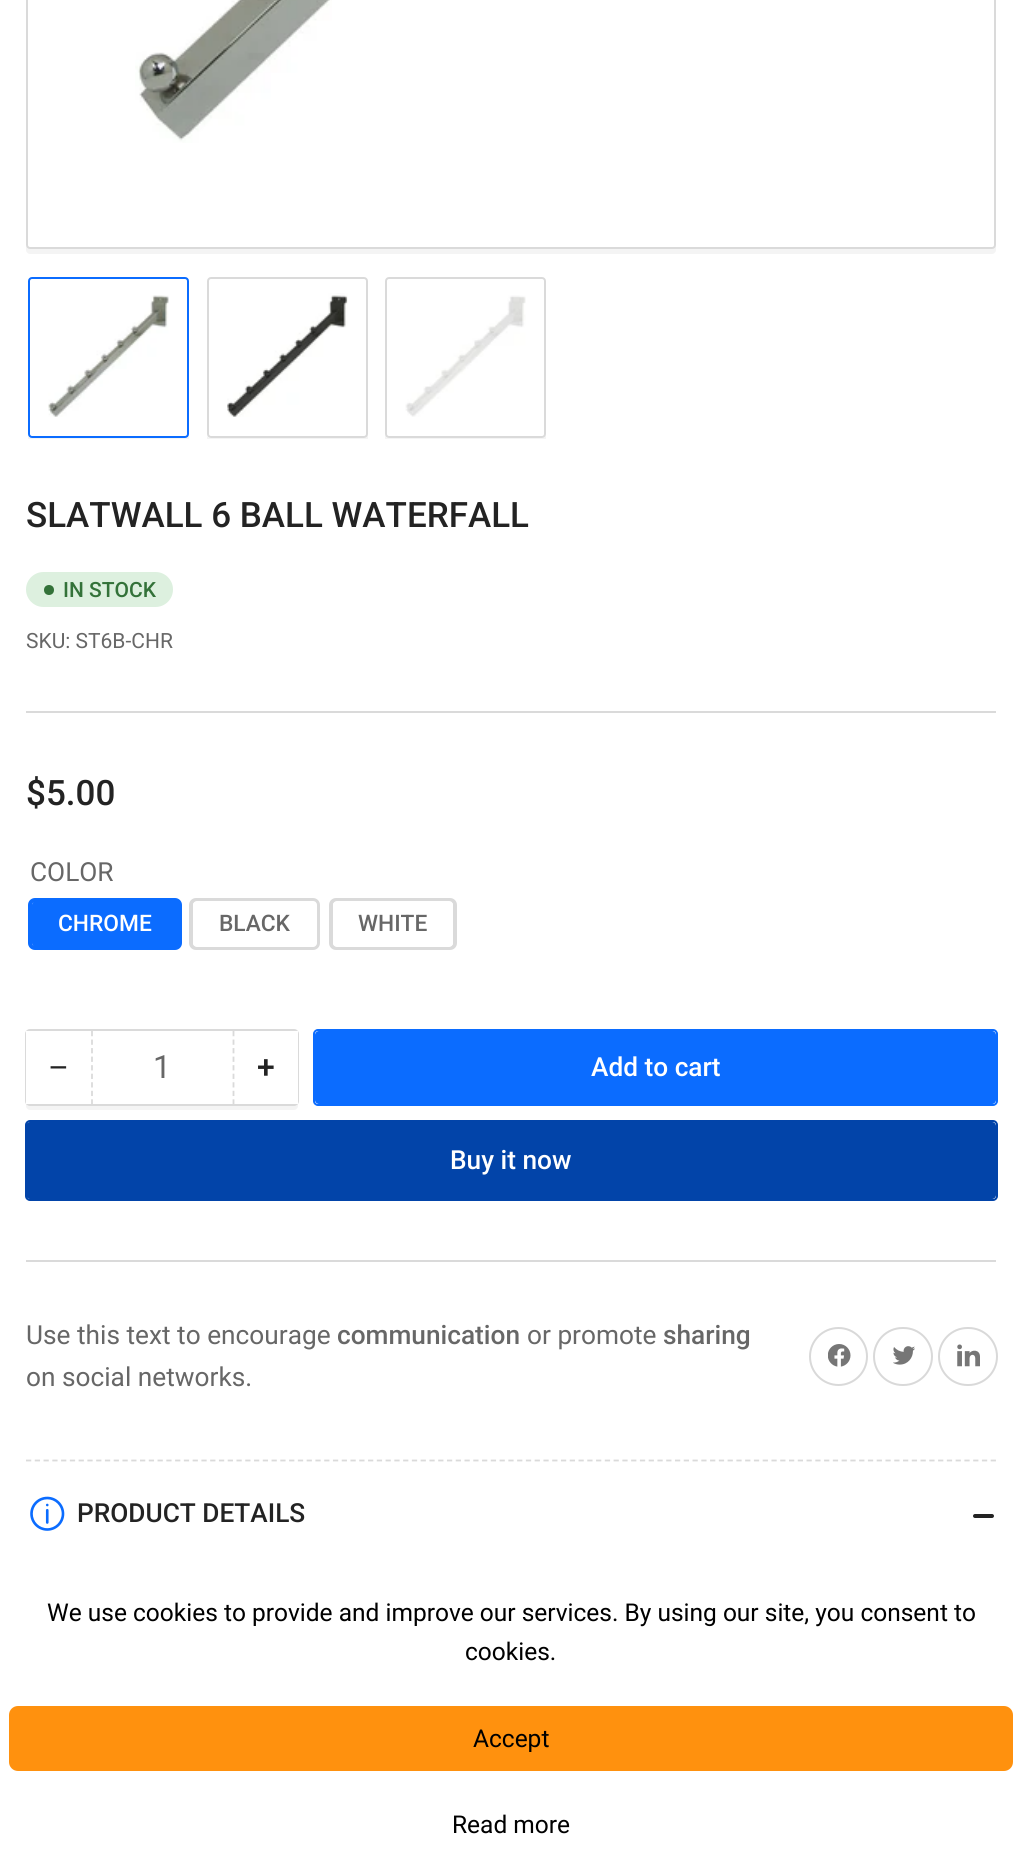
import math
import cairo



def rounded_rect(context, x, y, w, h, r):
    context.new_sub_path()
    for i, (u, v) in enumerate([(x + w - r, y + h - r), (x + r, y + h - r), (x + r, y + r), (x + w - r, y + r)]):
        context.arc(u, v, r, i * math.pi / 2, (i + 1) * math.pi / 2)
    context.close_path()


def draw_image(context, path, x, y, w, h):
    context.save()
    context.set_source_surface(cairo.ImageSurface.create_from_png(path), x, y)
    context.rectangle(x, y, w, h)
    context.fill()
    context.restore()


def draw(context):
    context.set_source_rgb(1, 1, 1)
    context.paint()
    context.set_source_rgb(244 / 255, 244 / 255, 244 / 255)
    context.new_path()
    context.move_to(26, -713)
    context.line_to(26, 250)
    context.curve_to(26, 252, 28, 254, 30, 254)
    context.line_to(992, 254)
    context.curve_to(994, 254, 996, 252, 996, 250)
    context.line_to(996, -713)
    context.line_to(996, 245)
    context.curve_to(996, 247, 994, 248, 992, 248)
    context.line_to(30, 248)
    context.curve_to(28, 248, 26, 247, 26, 245)
    context.close_path()
    context.fill()
    context.set_source_rgb(1, 1, 1)
    rounded_rect(context, 27, -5, 968, 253, 3)
    context.fill_preserve()
    context.set_source_rgb(218 / 255, 218 / 255, 218 / 255)
    context.stroke()
    draw_image(context, "images/1.png", 135, 0, 197, 143)
    context.save()
    context.rectangle(26, 275, 970, 164)
    context.clip()
    context.set_source_rgb(244 / 255, 244 / 255, 244 / 255)
    context.new_path()
    context.move_to(28, 434)
    context.line_to(28, 439)
    context.curve_to(28, 441, 30, 443, 32, 443)
    context.line_to(185, 443)
    context.curve_to(187, 443, 189, 441, 189, 439)
    context.line_to(189, 434)
    context.curve_to(189, 436, 187, 438, 186, 438)
    context.line_to(32, 438)
    context.curve_to(30, 438, 28, 436, 28, 434)
    context.close_path()
    context.fill()
    context.restore()
    context.set_source_rgb(1, 1, 1)
    rounded_rect(context, 29, 278, 159, 159, 3)
    context.fill_preserve()
    context.set_source_rgb(11 / 255, 108 / 255, 1)
    context.stroke()
    draw_image(context, "images/2.png", 48, 295, 121, 122)
    context.save()
    context.rectangle(26, 275, 970, 164)
    context.clip()
    context.set_source_rgb(244 / 255, 244 / 255, 244 / 255)
    context.new_path()
    context.move_to(207, 436)
    context.line_to(207, 439)
    context.curve_to(207, 441, 209, 443, 211, 443)
    context.line_to(364, 443)
    context.curve_to(366, 443, 368, 441, 368, 439)
    context.line_to(368, 286)
    context.line_to(368, 284)
    context.line_to(368, 434)
    context.curve_to(368, 436, 366, 438, 364, 438)
    context.line_to(210, 438)
    context.curve_to(209, 438, 208, 437, 207, 436)
    context.close_path()
    context.fill()
    context.restore()
    context.set_source_rgb(1, 1, 1)
    rounded_rect(context, 208, 278, 159, 159, 3)
    context.fill_preserve()
    context.set_source_rgb(218 / 255, 218 / 255, 218 / 255)
    context.stroke()
    draw_image(context, "images/3.png", 227, 293, 121, 124)
    context.save()
    context.rectangle(26, 275, 970, 164)
    context.clip()
    context.set_source_rgb(244 / 255, 244 / 255, 244 / 255)
    context.new_path()
    context.move_to(385, 434)
    context.line_to(385, 439)
    context.curve_to(385, 441, 387, 443, 389, 443)
    context.line_to(542, 443)
    context.curve_to(544, 443, 546, 441, 546, 439)
    context.line_to(546, 434)
    context.curve_to(546, 436, 544, 438, 542, 438)
    context.line_to(388, 438)
    context.curve_to(387, 438, 385, 436, 385, 434)
    context.close_path()
    context.fill()
    context.restore()
    context.set_source_rgb(1, 1, 1)
    rounded_rect(context, 386, 278, 159, 159, 3)
    context.fill_preserve()
    context.set_source_rgb(218 / 255, 218 / 255, 218 / 255)
    context.stroke()
    draw_image(context, "images/4.png", 405, 295, 121, 122)
    context.rectangle(26, 711, 970, 2)
    context.fill()
    context.set_source_rgb(221 / 255, 240 / 255, 223 / 255)
    rounded_rect(context, 26, 572, 147, 35, 17.5)
    context.fill()
    context.set_source_rgb(51 / 255, 114 / 255, 57 / 255)
    context.arc(49, 590, 5, 0, 2 * math.pi)
    context.fill()
    rounded_rect(context, 30, 900, 150, 48, 5)
    context.set_source_rgb(11 / 255, 108 / 255, 1)
    context.set_line_width(4)
    context.stroke()
    rounded_rect(context, 32, 901, 147, 46, 4)
    context.fill()
    rounded_rect(context, 191, 900, 127, 48, 5)
    context.set_source_rgb(218 / 255, 218 / 255, 218 / 255)
    context.stroke()
    context.set_source_rgb(1, 1, 1)
    rounded_rect(context, 193, 901, 124, 46, 4)
    context.fill()
    rounded_rect(context, 331, 900, 124, 48, 5)
    context.set_source_rgb(218 / 255, 218 / 255, 218 / 255)
    context.stroke()
    context.set_source_rgb(1, 1, 1)
    rounded_rect(context, 333, 901, 120, 46, 4)
    context.fill()
    context.set_source_rgb(244 / 255, 244 / 255, 244 / 255)
    context.new_path()
    context.move_to(26, 1039)
    context.line_to(26, 1106)
    context.curve_to(26, 1108, 28, 1110, 30, 1110)
    context.line_to(294, 1110)
    context.curve_to(296, 1110, 298, 1108, 298, 1106)
    context.line_to(298, 1040)
    context.line_to(298, 1038)
    context.line_to(298, 1101)
    context.curve_to(298, 1103, 296, 1104, 294, 1104)
    context.line_to(30, 1104)
    context.curve_to(28, 1104, 26, 1103, 26, 1101)
    context.close_path()
    context.fill()
    rounded_rect(context, 26, 1030, 272, 75, 4)
    context.set_source_rgb(218 / 255, 218 / 255, 218 / 255)
    context.set_line_width(2)
    context.stroke()
    context.set_source_rgb(1, 1, 1)
    context.rectangle(26, 1031, 4, 73)
    context.fill()
    context.new_path()
    context.move_to(233.5, 1031)
    context.line_to(233.5, 1104)
    context.set_source_rgb(218 / 255, 218 / 255, 218 / 255)
    context.set_line_width(1.8)
    context.set_dash([5.25, 3.29])
    context.stroke()
    context.new_path()
    context.move_to(92, 1031)
    context.line_to(92, 1104)
    context.stroke()
    context.set_source_rgb(1, 1, 1)
    context.rectangle(294, 1031, 4, 73)
    context.fill()
    rounded_rect(context, 314, 1030, 683, 75, 4)
    context.set_source_rgb(11 / 255, 108 / 255, 1)
    context.set_line_width(2)
    context.set_dash([])
    context.stroke()
    rounded_rect(context, 315, 1031, 681, 73, 4)
    context.fill()
    rounded_rect(context, 26, 1121, 971, 79, 4)
    context.set_source_rgb(2 / 255, 68 / 255, 169 / 255)
    context.stroke()
    rounded_rect(context, 26, 1122, 970, 77, 4)
    context.fill()
    context.set_source_rgb(218 / 255, 218 / 255, 218 / 255)
    context.rectangle(26, 1260, 970, 2)
    context.fill()
    context.arc(838.5, 1356.5, 28.5, 0, 2 * math.pi)
    context.set_source_rgb(217 / 255, 217 / 255, 217 / 255)
    context.stroke()
    draw_image(context, "images/5.png", 828, 1344, 23, 23)
    rounded_rect(context, 874, 1328, 58, 57, 28.5)
    context.stroke()
    draw_image(context, "images/6.png", 893, 1346, 22, 19)
    rounded_rect(context, 939, 1328, 58, 57, 28.5)
    context.stroke()
    draw_image(context, "images/7.png", 957, 1344, 23, 23)
    context.new_path()
    context.move_to(26, 1460.5)
    context.line_to(996, 1460.5)
    context.set_source_rgb(218 / 255, 218 / 255, 218 / 255)
    context.set_line_width(1.8)
    context.set_dash([5.25, 3.52])
    context.stroke()
    draw_image(context, "images/8.png", 30, 1496, 35, 35)
    context.set_source_rgb(35 / 255, 35 / 255, 35 / 255)
    rounded_rect(context, 973, 1514, 12, 4, 2)
    context.fill()
    rounded_rect(context, 980, 1514, 14, 4, 2)
    context.fill()
    context.set_source_rgb(1, 145 / 255, 14 / 255)
    rounded_rect(context, 9, 1706, 1004, 65, 9)
    context.fill()
    context.select_font_face("Roboto Medium")
    context.set_font_size(35)
    context.set_source_rgb(35 / 255, 35 / 255, 35 / 255)
    context.move_to(26, 527)
    context.show_text("SLATWALL 6 BALL WATERFALL")
    context.set_font_size(21)
    context.set_source_rgb(51 / 255, 114 / 255, 57 / 255)
    context.move_to(63, 597)
    context.show_text("IN STOCK")
    context.select_font_face("Roboto")
    context.set_source_rgb(103 / 255, 103 / 255, 103 / 255)
    context.move_to(26, 648)
    context.show_text("SKU: ST6B-CHR")
    context.select_font_face("Roboto Medium")
    context.set_font_size(35)
    context.set_source_rgb(35 / 255, 35 / 255, 35 / 255)
    context.move_to(26, 805)
    context.show_text("$5.00")
    context.select_font_face("Roboto")
    context.set_font_size(26.25)
    context.set_source_rgb(103 / 255, 103 / 255, 103 / 255)
    context.move_to(30, 881)
    context.show_text("COLOR")
    context.select_font_face("Roboto Medium")
    context.set_font_size(22.75)
    context.set_source_rgb(1, 1, 1)
    context.move_to(58, 931)
    context.show_text("CHROME")
    context.set_source_rgb(103 / 255, 103 / 255, 103 / 255)
    context.move_to(219, 931)
    context.show_text("BLACK")
    context.move_to(358, 931)
    context.show_text("WHITE")
    context.select_font_face("Liberation Sans")
    context.set_font_size(32)
    context.set_source_rgb(35 / 255, 35 / 255, 35 / 255)
    context.move_to(49, 1078)
    context.show_text("−")
    context.select_font_face("Roboto")
    context.set_source_rgb(103 / 255, 103 / 255, 103 / 255)
    context.move_to(153, 1078)
    context.show_text("1")
    context.select_font_face("Roboto Medium")
    context.set_source_rgb(35 / 255, 35 / 255, 35 / 255)
    context.move_to(257, 1078)
    context.show_text("+")
    context.set_font_size(26.25)
    context.set_source_rgb(1, 1, 1)
    context.move_to(591, 1076)
    context.show_text("Add to cart")
    context.move_to(450, 1169)
    context.show_text("Buy it now")
    context.select_font_face("Roboto")
    context.set_source_rgb(103 / 255, 103 / 255, 103 / 255)
    context.move_to(26, 1344)
    context.show_text("Use this text to encourage")
    context.select_font_face("Roboto Medium")
    context.move_to(337, 1344)
    context.show_text("communication")
    context.select_font_face("Roboto")
    context.move_to(527, 1344)
    context.show_text("or promote")
    context.select_font_face("Roboto Medium")
    context.move_to(663, 1344)
    context.show_text("sharing")
    context.select_font_face("Roboto")
    context.move_to(26, 1386)
    context.show_text("on social networks.")
    context.select_font_face("Roboto Medium")
    context.set_source_rgb(35 / 255, 35 / 255, 35 / 255)
    context.move_to(77, 1522)
    context.show_text("PRODUCT DETAILS")
    context.select_font_face("Roboto")
    context.set_font_size(24.5)
    context.set_source_rgb(0, 0, 0)
    context.move_to(47, 1621)
    context.show_text("We use cookies to provide and improve our services. By using our site, you consent to")
    context.move_to(465, 1660)
    context.show_text("cookies.")
    context.move_to(473, 1747)
    context.show_text("Accept")
    context.move_to(452, 1833)
    context.show_text("Read more")


surface = cairo.ImageSurface(cairo.Format.RGB24, 1021, 1861)
context = cairo.Context(surface)
options = cairo.FontOptions()
options.set_hint_metrics(cairo.HintMetrics.OFF)
options.set_hint_style(cairo.HintStyle.NONE)
context.set_font_options(options)
context.set_miter_limit(4)
draw(context)
surface.write_to_png("out.png")
